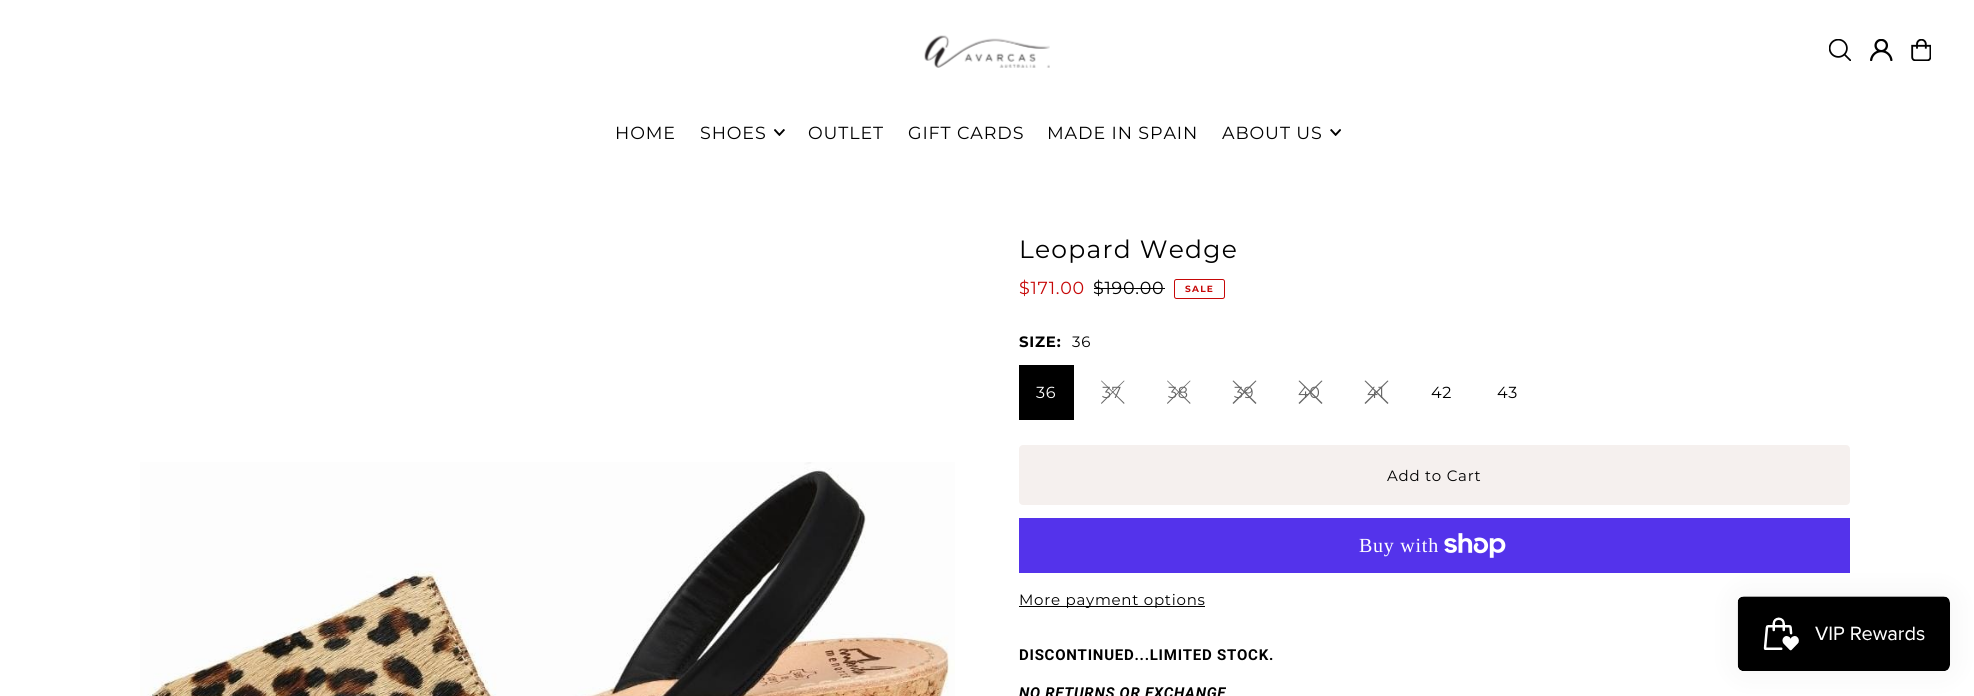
import math
import cairo



def draw_spaced(context, x, y, s, letter, word):
    context.move_to(x, y)
    for ch in s:
        context.show_text(ch)
        context.rel_move_to(letter + word * (ch == ' '), 0)


def rounded_rect(context, x, y, w, h, r):
    context.new_sub_path()
    for i, (u, v) in enumerate([(x + w - r, y + h - r), (x + r, y + h - r), (x + r, y + r), (x + w - r, y + r)]):
        context.arc(u, v, r, i * math.pi / 2, (i + 1) * math.pi / 2)
    context.close_path()


def draw_shadow(context, x, y, w, h, r, blur, alpha):
    context.push_group_with_content(cairo.Content.ALPHA)
    context.set_operator(cairo.Operator.SOURCE)
    for i in range(15, -16, -2):
        e = blur * i / 6
        if min(w, h) + 2 * e > 0:
            context.set_source_rgba(0, 0, 0, alpha * math.erfc((i - 1) / 8.5) / 2)
            rounded_rect(context, x - e, y - e, w + 2 * e, h + 2 * e, max(0, min(r + e + blur * .6, min(w, h) / 2 + e)))
            context.fill()
    context.mask(context.pop_group())


def draw_image(context, path, x, y, w, h):
    context.save()
    context.set_source_surface(cairo.ImageSurface.create_from_png(path), x, y)
    context.rectangle(x, y, w, h)
    context.fill()
    context.restore()


def draw(context):
    context.set_source_rgb(1, 1, 1)
    context.paint()
    draw_image(context, "images/1.png", 924, 35, 126, 33)
    draw_image(context, "images/2.png", 1829, 39, 22, 22)
    draw_image(context, "images/3.png", 1870, 39, 23, 22)
    draw_image(context, "images/4.png", 1911, 39, 20, 22)
    draw_image(context, "images/5.png", 774, 129, 11, 7)
    draw_image(context, "images/6.png", 1330, 129, 11, 7)
    draw_image(context, "images/7.png", 140, 462, 815, 234)
    context.set_source_rgb(0, 0, 0)
    context.rectangle(1094, 288, 71, 1)
    context.fill()
    rounded_rect(context, 1174.5, 279.5, 50, 19, 2)
    context.set_source_rgb(198 / 255, 8 / 255, 8 / 255)
    context.set_line_width(1)
    context.stroke()
    context.set_source_rgb(0, 0, 0)
    context.rectangle(1019, 365, 55, 55)
    context.fill()
    context.set_source_rgb(102 / 255, 102 / 255, 102 / 255)
    context.new_path()
    context.move_to(1124, 380.5)
    context.line_to(1124.5, 381)
    context.line_to(1101.5, 404)
    context.line_to(1101, 403)
    context.close_path()
    context.fill()
    context.new_path()
    context.move_to(1124.5, 403)
    context.line_to(1124, 404)
    context.line_to(1101, 381)
    context.line_to(1101.5, 380.5)
    context.close_path()
    context.fill()
    context.new_path()
    context.move_to(1190, 380.5)
    context.line_to(1190.5, 381)
    context.line_to(1167.5, 404)
    context.line_to(1167, 403)
    context.close_path()
    context.fill()
    context.new_path()
    context.move_to(1190.5, 403)
    context.line_to(1190, 404)
    context.line_to(1167, 381)
    context.line_to(1167.5, 380.5)
    context.close_path()
    context.fill()
    context.new_path()
    context.move_to(1255.5, 380.5)
    context.line_to(1256.5, 381)
    context.line_to(1233.5, 404)
    context.line_to(1232.5, 403)
    context.close_path()
    context.fill()
    context.new_path()
    context.move_to(1256.5, 403)
    context.line_to(1255.5, 404)
    context.line_to(1232.5, 381)
    context.line_to(1233.5, 380.5)
    context.close_path()
    context.fill()
    context.new_path()
    context.move_to(1321.5, 380.5)
    context.line_to(1322.5, 381)
    context.line_to(1299.5, 404)
    context.line_to(1298.5, 403)
    context.close_path()
    context.fill()
    context.new_path()
    context.move_to(1322.5, 403)
    context.line_to(1321.5, 404)
    context.line_to(1298.5, 381)
    context.line_to(1299.5, 380.5)
    context.close_path()
    context.fill()
    context.new_path()
    context.move_to(1387.5, 380.5)
    context.line_to(1388.5, 381)
    context.line_to(1365.5, 404)
    context.line_to(1364.5, 403)
    context.close_path()
    context.fill()
    context.new_path()
    context.move_to(1388.5, 403)
    context.line_to(1387.5, 404)
    context.line_to(1364.5, 381)
    context.line_to(1365.5, 380.5)
    context.close_path()
    context.fill()
    context.set_source_rgb(245 / 255, 240 / 255, 238 / 255)
    rounded_rect(context, 1019, 445, 831, 60, 4)
    context.fill()
    context.set_source_rgb(84 / 255, 51 / 255, 235 / 255)
    context.rectangle(1019, 518, 831, 55)
    context.fill()
    draw_image(context, "images/8.png", 1444, 533, 62, 25)
    context.set_source_rgb(0, 0, 0)
    context.rectangle(1019, 606, 186, 1)
    context.fill()
    context.set_source_rgb(0, 0, 0)
    draw_shadow(context, 1738, 596, 212, 75, 6, 15.5, 0.05)
    draw_image(context, "images/9.png", 1737, 596, 213, 75)
    context.select_font_face("Montserrat Thin")
    context.set_font_size(17.5)
    context.set_source_rgb(0, 0, 0)
    draw_spaced(context, 615, 139, "HOME", 0.9, 0)
    draw_spaced(context, 700, 139, "SHOES", 0.9, 0)
    draw_spaced(context, 808, 139, "OUTLET", 0.9, 0)
    draw_spaced(context, 908, 139, "GIFT CARDS", 0.9, 0)
    draw_spaced(context, 1047, 139, "MADE IN SPAIN", 0.9, 0)
    draw_spaced(context, 1222, 139, "ABOUT US", 0.9, 0)
    context.set_font_size(25)
    draw_spaced(context, 1019, 258, "Leopard Wedge", 1.25, 0)
    context.set_font_size(17.5)
    context.set_source_rgb(198 / 255, 8 / 255, 8 / 255)
    draw_spaced(context, 1019, 294, "$171.00", 0.75, 0)
    context.set_source_rgb(0, 0, 0)
    draw_spaced(context, 1093, 294, "$190.00", 0.75, 0)
    context.select_font_face("Montserrat", cairo.FontSlant.NORMAL, cairo.FontWeight.BOLD)
    context.set_font_size(9)
    context.set_source_rgb(198 / 255, 8 / 255, 8 / 255)
    draw_spaced(context, 1185, 292, "SALE", 1.25, 0)
    context.set_font_size(15)
    context.set_source_rgb(0, 0, 0)
    draw_spaced(context, 1019, 347, "SIZE:", 0.75, 0)
    context.select_font_face("Montserrat Thin")
    draw_spaced(context, 1072, 347, "36", 0.75, 0)
    context.set_font_size(16)
    context.set_source_rgb(1, 1, 1)
    draw_spaced(context, 1036, 398, "36", 0.75, 0)
    context.set_source_rgb(102 / 255, 102 / 255, 102 / 255)
    draw_spaced(context, 1102, 398, "37", 0.75, 0)
    draw_spaced(context, 1168, 398, "38", 0.75, 0)
    draw_spaced(context, 1234, 398, "39", 0.75, 0)
    draw_spaced(context, 1298, 398, "40", 0.75, 0)
    draw_spaced(context, 1367, 398, "41", 0.75, 0)
    context.set_source_rgb(0, 0, 0)
    draw_spaced(context, 1431, 398, "42", 0.75, 0)
    draw_spaced(context, 1497, 398, "43", 0.75, 0)
    context.set_font_size(15)
    draw_spaced(context, 1387, 481, "Add to Cart", 0.75, 0)
    context.select_font_face("Liberation Serif")
    context.set_font_size(20)
    context.set_source_rgb(1, 1, 1)
    draw_spaced(context, 1359, 552, "Buy with", 0.75, 0)
    context.select_font_face("Montserrat Thin")
    context.set_font_size(15)
    context.set_source_rgb(0, 0, 0)
    draw_spaced(context, 1019, 605, "More payment options", 0.75, 0)
    context.select_font_face("Roboto", cairo.FontSlant.NORMAL, cairo.FontWeight.BOLD)
    draw_spaced(context, 1019, 660, "DISCONTINUED...LIMITED STOCK.", 0.75, 0)
    context.select_font_face("Roboto", cairo.FontSlant.ITALIC, cairo.FontWeight.BOLD)
    draw_spaced(context, 1019, 698, "NO RETURNS OR EXCHANGE", 0.75, 0)


surface = cairo.ImageSurface(cairo.Format.RGB24, 1974, 696)
context = cairo.Context(surface)
options = cairo.FontOptions()
options.set_hint_metrics(cairo.HintMetrics.OFF)
options.set_hint_style(cairo.HintStyle.NONE)
context.set_font_options(options)
context.set_miter_limit(4)
draw(context)
surface.write_to_png("out.png")
